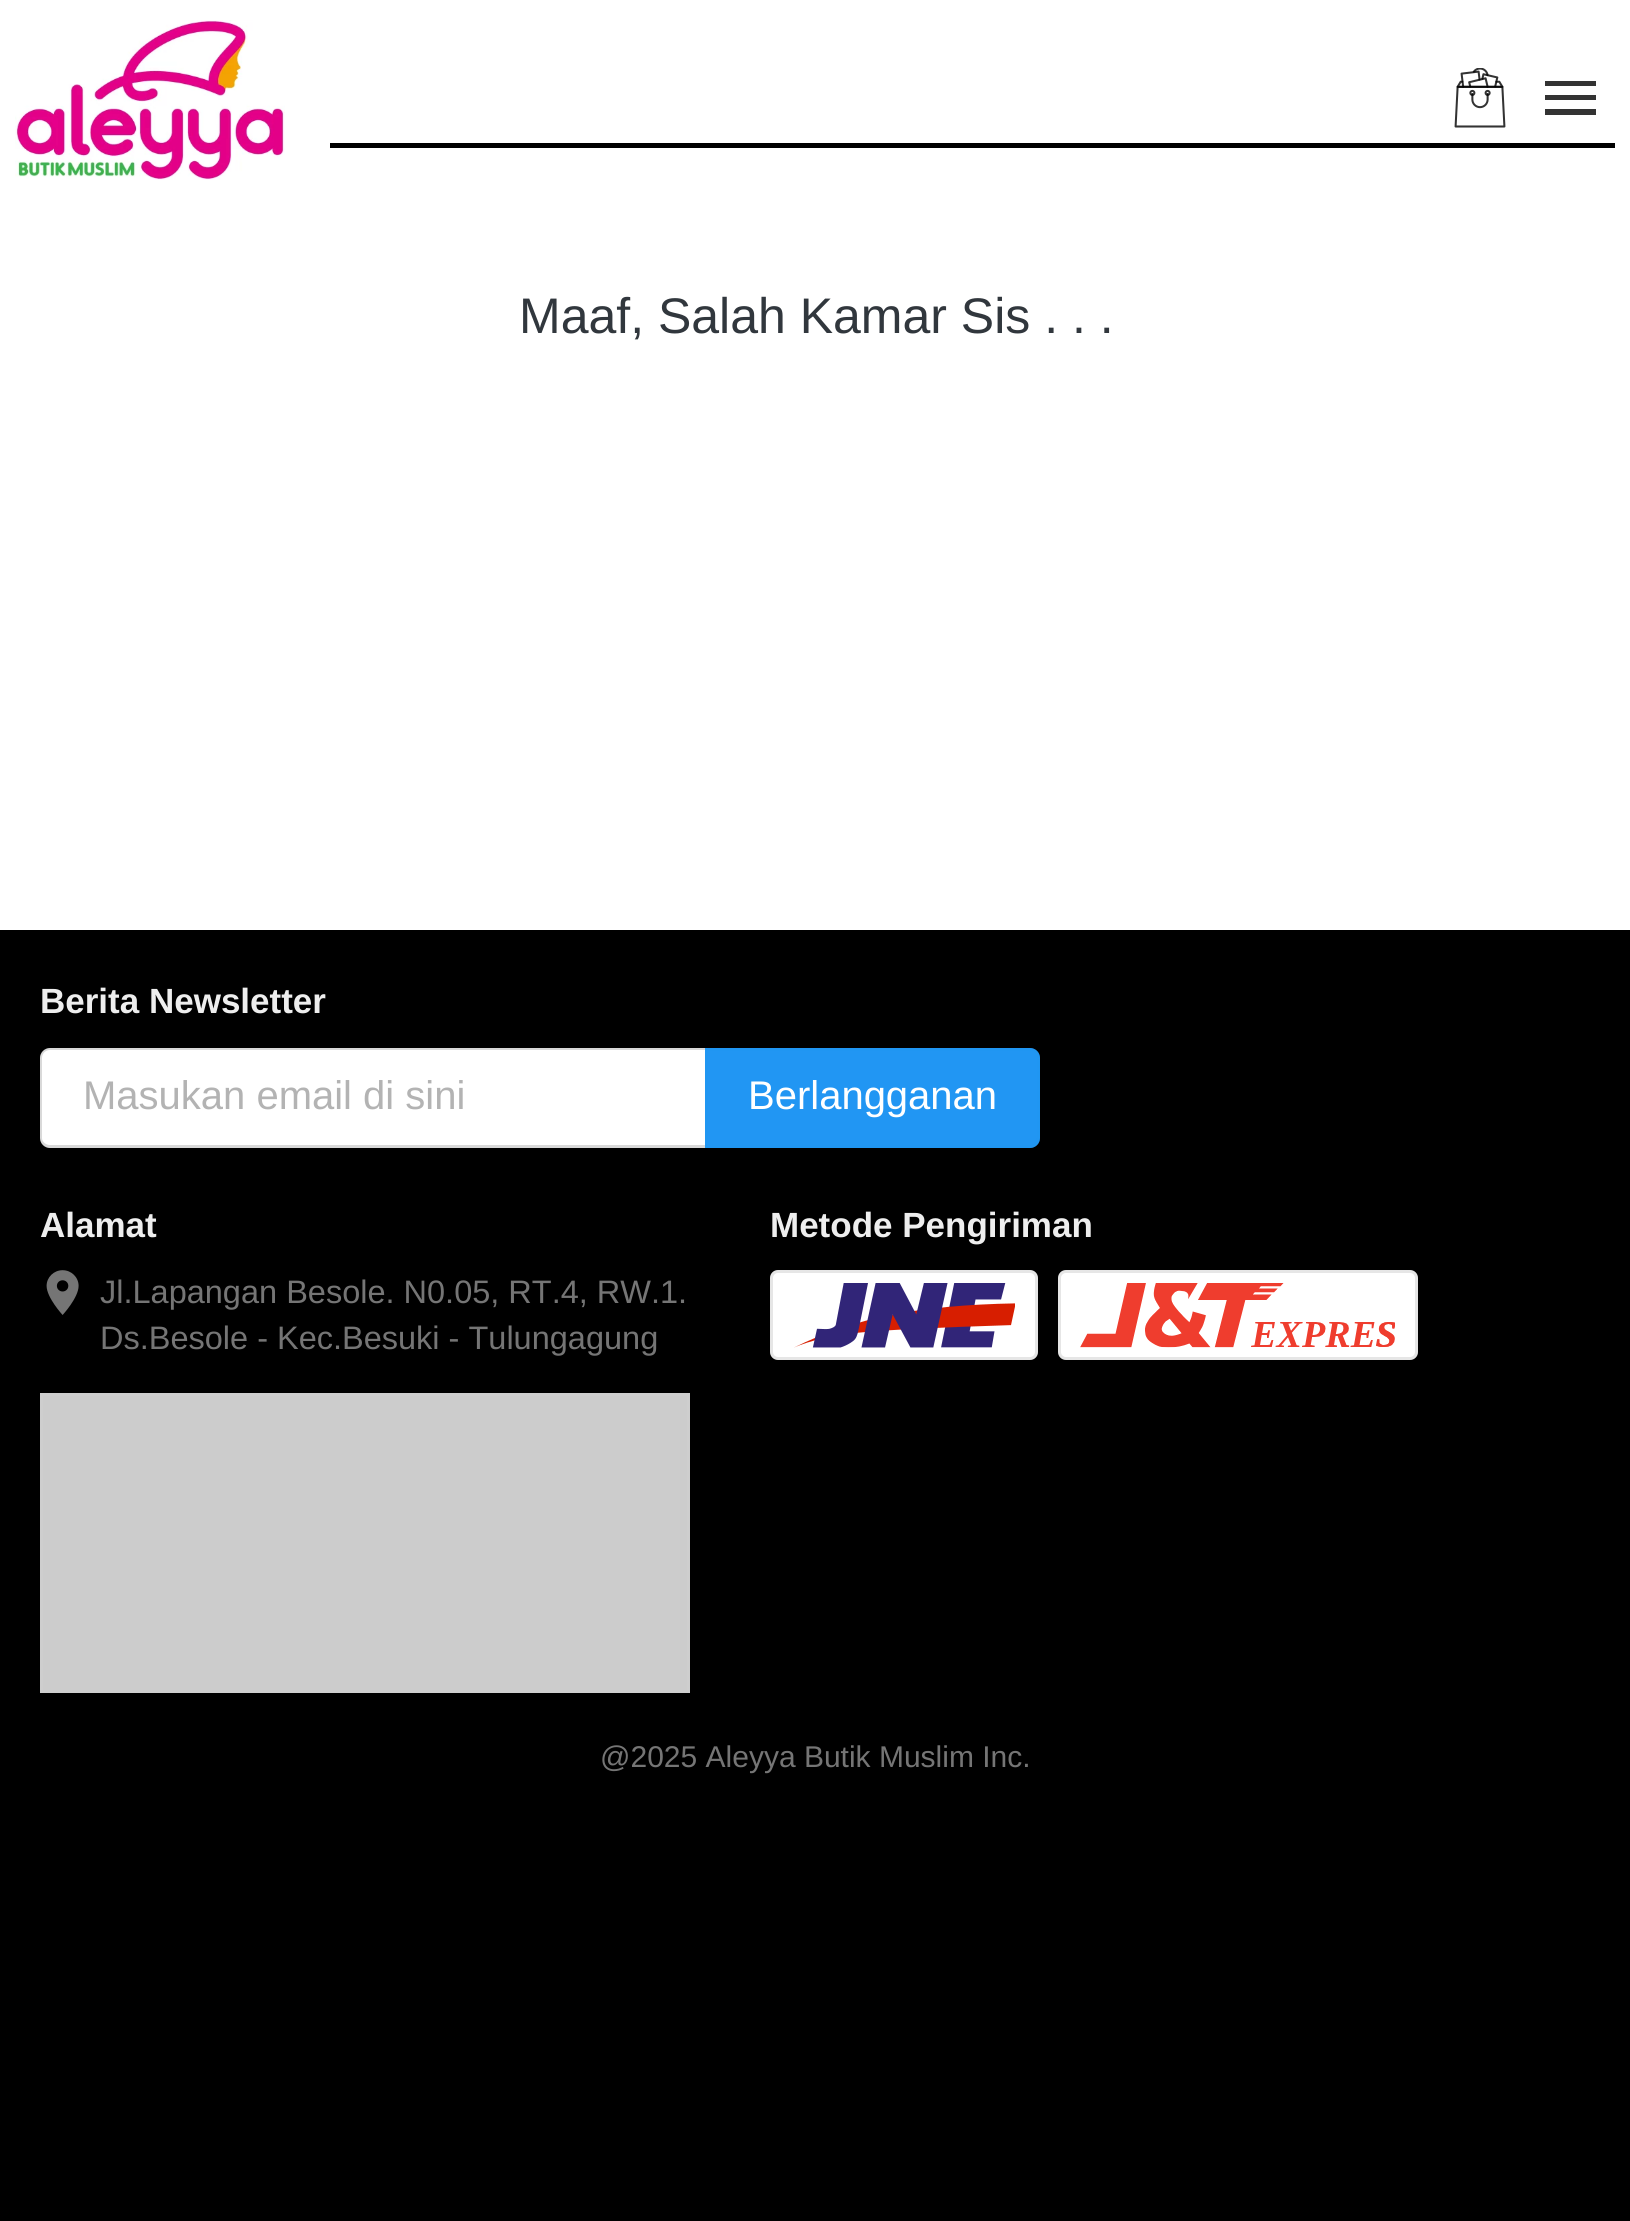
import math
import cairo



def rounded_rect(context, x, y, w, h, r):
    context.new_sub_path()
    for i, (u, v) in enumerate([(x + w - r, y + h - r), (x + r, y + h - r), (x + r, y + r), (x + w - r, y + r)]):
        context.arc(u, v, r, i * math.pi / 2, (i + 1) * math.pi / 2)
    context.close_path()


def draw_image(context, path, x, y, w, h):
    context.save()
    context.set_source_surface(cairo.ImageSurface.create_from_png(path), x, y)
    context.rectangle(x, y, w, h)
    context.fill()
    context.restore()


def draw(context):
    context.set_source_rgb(1, 1, 1)
    context.paint()
    draw_image(context, "images/1.png", 15, 20, 270, 160)
    draw_image(context, "images/2.png", 1454, 68, 52, 60)
    context.set_source_rgb(51 / 255, 51 / 255, 51 / 255)
    context.new_path()
    context.move_to(1545, 115)
    context.line_to(1596, 115)
    context.line_to(1596, 109)
    context.line_to(1545, 109)
    context.close_path()
    context.move_to(1545, 100)
    context.line_to(1596, 100)
    context.line_to(1596, 95)
    context.line_to(1545, 95)
    context.close_path()
    context.move_to(1545, 81)
    context.line_to(1545, 86)
    context.line_to(1596, 86)
    context.line_to(1596, 81)
    context.close_path()
    context.fill()
    context.set_source_rgb(0, 0, 0)
    context.rectangle(330, 143, 1285, 5)
    context.fill()
    context.rectangle(0, 930, 1630, 1291)
    context.fill()
    context.set_source_rgb(1, 1, 1)
    context.new_path()
    context.move_to(50, 1048)
    context.line_to(705, 1048)
    context.line_to(705, 1148)
    context.line_to(50, 1148)
    context.curve_to(44.5, 1148, 40, 1143.5, 40, 1138)
    context.line_to(40, 1058)
    context.curve_to(40, 1052.5, 44.5, 1048, 50, 1048)
    context.close_path()
    context.fill()
    context.set_source_rgba(0, 0, 0, 0.15)
    context.set_fill_rule(cairo.FillRule.EVEN_ODD)
    context.new_path()
    context.move_to(50, 1048)
    context.line_to(705, 1048)
    context.line_to(705, 1148)
    context.line_to(50, 1148)
    context.curve_to(44, 1148, 40, 1143, 40, 1138)
    context.line_to(40, 1058)
    context.curve_to(40, 1052, 44, 1048, 50, 1048)
    context.close_path()
    context.move_to(50, 1050)
    context.line_to(705, 1050)
    context.line_to(705, 1145)
    context.line_to(50, 1145)
    context.curve_to(46, 1145, 42, 1142, 42, 1138)
    context.line_to(42, 1058)
    context.curve_to(42, 1053, 46, 1050, 50, 1050)
    context.close_path()
    context.fill()
    context.set_source_rgb(33 / 255, 150 / 255, 243 / 255)
    context.new_path()
    context.move_to(705, 1048)
    context.line_to(1030, 1048)
    context.curve_to(1035.5, 1048, 1040, 1052.5, 1040, 1058)
    context.line_to(1040, 1138)
    context.curve_to(1040, 1143.5, 1035.5, 1148, 1030, 1148)
    context.line_to(705, 1148)
    context.close_path()
    context.fill()
    context.new_path()
    context.move_to(706.5, 1049.5)
    context.line_to(1030, 1049.5)
    context.curve_to(1034.5, 1049.5, 1038.5, 1053.5, 1038.5, 1058)
    context.line_to(1038.5, 1138)
    context.curve_to(1038.5, 1142.5, 1034.5, 1146.5, 1030, 1146.5)
    context.line_to(706.5, 1146.5)
    context.close_path()
    context.set_source_rgba(33 / 255, 150 / 255, 243 / 255, 0.5)
    context.set_line_width(3)
    context.stroke()
    draw_image(context, "images/3.png", 46, 1270, 33, 45)
    context.set_source_rgb(204 / 255, 204 / 255, 204 / 255)
    context.rectangle(41.5, 1394.5, 647, 297)
    context.fill_preserve()
    context.set_source_rgb(206 / 255, 206 / 255, 206 / 255)
    context.stroke()
    context.set_source_rgb(1, 1, 1)
    rounded_rect(context, 770, 1270, 268, 90, 8)
    context.fill()
    rounded_rect(context, 771.5, 1271.5, 265, 87, 6.5)
    context.set_source_rgba(0, 0, 0, 0.1)
    context.stroke()
    draw_image(context, "images/4.png", 794, 1283, 221, 65)
    context.set_source_rgb(1, 1, 1)
    rounded_rect(context, 1058, 1270, 360, 90, 8)
    context.fill()
    rounded_rect(context, 1059.5, 1271.5, 357, 87, 6.5)
    context.set_source_rgba(0, 0, 0, 0.1)
    context.stroke()
    draw_image(context, "images/5.png", 1080, 1283, 315, 65)
    context.select_font_face("Liberation Sans")
    context.set_font_size(50)
    context.set_source_rgb(49 / 255, 55 / 255, 61 / 255)
    context.move_to(519, 333)
    context.show_text("Maaf, Salah Kamar Sis . . .")
    context.select_font_face("Liberation Sans", cairo.FontSlant.NORMAL, cairo.FontWeight.BOLD)
    context.set_font_size(35)
    context.set_source_rgb(238 / 255, 238 / 255, 238 / 255)
    context.move_to(40, 1013)
    context.show_text("Berita Newsletter")
    context.select_font_face("Liberation Sans")
    context.set_font_size(40)
    context.set_source_rgb(179 / 255, 179 / 255, 179 / 255)
    context.move_to(83, 1109)
    context.show_text("Masukan email di sini")
    context.set_source_rgb(1, 1, 1)
    context.move_to(748, 1109)
    context.show_text("Berlangganan")
    context.select_font_face("Liberation Sans", cairo.FontSlant.NORMAL, cairo.FontWeight.BOLD)
    context.set_font_size(35)
    context.set_source_rgb(238 / 255, 238 / 255, 238 / 255)
    context.move_to(40, 1237)
    context.show_text("Alamat")
    context.select_font_face("Liberation Sans")
    context.set_font_size(32.5)
    context.set_source_rgb(117 / 255, 117 / 255, 117 / 255)
    context.move_to(100, 1303)
    context.show_text("Jl.Lapangan Besole. N0.05, RT.4, RW.1.")
    context.move_to(100, 1349)
    context.show_text("Ds.Besole - Kec.Besuki - Tulungagung")
    context.select_font_face("Liberation Sans", cairo.FontSlant.NORMAL, cairo.FontWeight.BOLD)
    context.set_font_size(35)
    context.set_source_rgb(238 / 255, 238 / 255, 238 / 255)
    context.move_to(770, 1237)
    context.show_text("Metode Pengiriman")
    context.select_font_face("Liberation Sans")
    context.set_font_size(30)
    context.set_source_rgb(117 / 255, 117 / 255, 117 / 255)
    context.move_to(600, 1767)
    context.show_text("@2025 Aleyya Butik Muslim Inc.")


surface = cairo.ImageSurface(cairo.Format.RGB24, 1630, 2221)
context = cairo.Context(surface)
options = cairo.FontOptions()
options.set_hint_metrics(cairo.HintMetrics.OFF)
options.set_hint_style(cairo.HintStyle.NONE)
context.set_font_options(options)
context.set_miter_limit(4)
draw(context)
surface.write_to_png("out.png")
